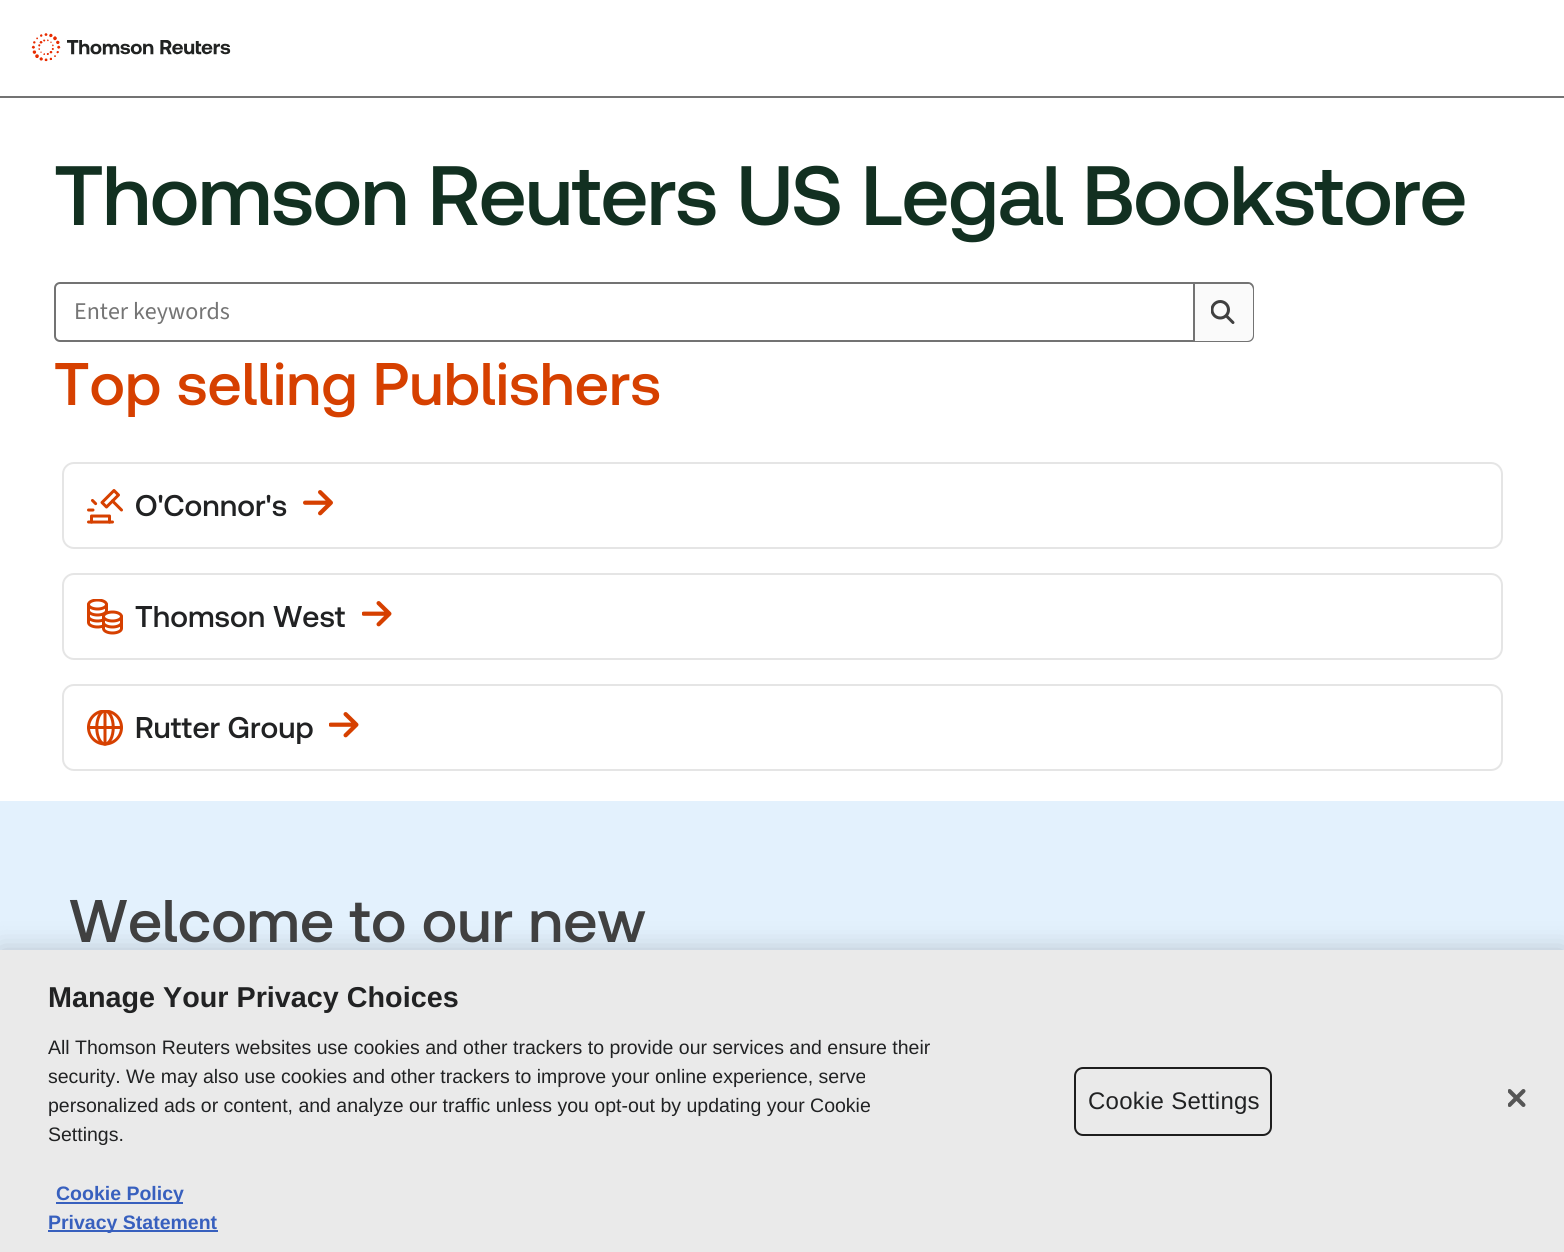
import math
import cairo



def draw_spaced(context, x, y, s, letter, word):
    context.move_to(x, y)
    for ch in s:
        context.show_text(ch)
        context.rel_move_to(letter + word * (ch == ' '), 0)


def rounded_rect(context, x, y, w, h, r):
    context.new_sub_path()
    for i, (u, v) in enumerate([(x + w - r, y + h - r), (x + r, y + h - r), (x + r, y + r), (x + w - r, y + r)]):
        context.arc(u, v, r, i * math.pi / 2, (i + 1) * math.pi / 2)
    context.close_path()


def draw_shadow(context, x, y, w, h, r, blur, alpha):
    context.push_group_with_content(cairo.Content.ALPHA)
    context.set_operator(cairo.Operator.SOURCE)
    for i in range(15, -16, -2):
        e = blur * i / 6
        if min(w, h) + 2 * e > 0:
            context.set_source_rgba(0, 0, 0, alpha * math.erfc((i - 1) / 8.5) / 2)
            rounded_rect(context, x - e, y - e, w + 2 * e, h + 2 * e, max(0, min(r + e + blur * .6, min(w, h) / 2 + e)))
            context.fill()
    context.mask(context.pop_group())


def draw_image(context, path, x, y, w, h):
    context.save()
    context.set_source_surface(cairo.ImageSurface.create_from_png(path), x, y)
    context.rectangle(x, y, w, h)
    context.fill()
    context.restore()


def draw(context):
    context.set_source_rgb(1, 1, 1)
    context.paint()
    context.set_source_rgb(115 / 255, 115 / 255, 115 / 255)
    context.rectangle(0, 96, 1564, 2)
    context.fill()
    draw_image(context, "images/1.png", 31, 33, 200, 29)
    rounded_rect(context, 55, 283, 1198, 58, 5)
    context.stroke()
    context.set_source_rgb(250 / 255, 250 / 255, 250 / 255)
    context.new_path()
    context.move_to(1193, 284)
    context.line_to(1247, 284)
    context.curve_to(1250.5, 284, 1253, 286.5, 1253, 290)
    context.line_to(1253, 335)
    context.curve_to(1253, 338.5, 1250.5, 341, 1247, 341)
    context.line_to(1193, 341)
    context.close_path()
    context.fill()
    context.set_source_rgb(115 / 255, 115 / 255, 115 / 255)
    context.rectangle(1193, 284, 2, 57)
    context.fill()
    draw_image(context, "images/2.png", 1211, 300, 24, 24)
    rounded_rect(context, 63, 463, 1439, 85, 11)
    context.set_source_rgb(229 / 255, 229 / 255, 229 / 255)
    context.stroke()
    draw_image(context, "images/3.png", 87, 489, 36, 35)
    draw_image(context, "images/4.png", 303, 490, 30, 26)
    rounded_rect(context, 63, 574, 1439, 85, 11)
    context.stroke()
    draw_image(context, "images/5.png", 87, 599, 36, 36)
    draw_image(context, "images/6.png", 362, 601, 30, 26)
    rounded_rect(context, 63, 685, 1439, 85, 11)
    context.stroke()
    draw_image(context, "images/7.png", 87, 710, 36, 36)
    draw_image(context, "images/6.png", 329, 712, 30, 26)
    context.set_source_rgb(227 / 255, 241 / 255, 253 / 255)
    context.rectangle(0, 801, 1564, 149)
    context.fill()
    context.set_source_rgb(0, 0, 0)
    draw_shadow(context, 0, 950, 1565, 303, 0, 13.5, 0.2)
    context.set_source_rgb(234 / 255, 234 / 255, 234 / 255)
    context.rectangle(0, 950, 1564, 302)
    context.fill()
    context.set_source_rgb(56 / 255, 96 / 255, 190 / 255)
    context.rectangle(56, 1202, 127, 2)
    context.fill()
    context.rectangle(48, 1230, 170, 2)
    context.fill()
    rounded_rect(context, 1075, 1068, 196, 67, 8)
    context.set_source_rgb(30 / 255, 30 / 255, 30 / 255)
    context.stroke()
    draw_image(context, "images/8.png", 1508, 1089, 18, 18)
    context.select_font_face("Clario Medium")
    context.set_font_size(84)
    context.set_source_rgb(18 / 255, 48 / 255, 33 / 255)
    draw_spaced(context, 54, 225, "Thomson Reuters US Legal Bookstore", -1.5, 0)
    context.select_font_face("Source Sans 3")
    context.set_font_size(24)
    context.set_source_rgb(117 / 255, 117 / 255, 117 / 255)
    context.move_to(74, 319)
    context.show_text("Enter keywords")
    context.select_font_face("Clario Medium")
    context.set_font_size(60)
    context.set_source_rgb(214 / 255, 64 / 255, 0)
    context.move_to(54, 405)
    context.show_text("Top selling Publishers")
    context.set_font_size(30)
    context.set_source_rgb(33 / 255, 34 / 255, 35 / 255)
    context.move_to(135, 516)
    context.show_text("O'Connor's")
    context.move_to(135, 627)
    context.show_text("Thomson West")
    context.move_to(135, 738)
    context.show_text("Rutter Group")
    context.set_font_size(60)
    context.set_source_rgb(64 / 255, 64 / 255, 64 / 255)
    context.move_to(69, 942)
    context.show_text("Welcome to our new")
    context.select_font_face("Liberation Sans", cairo.FontSlant.NORMAL, cairo.FontWeight.BOLD)
    context.set_font_size(28.75)
    context.set_source_rgb(33 / 255, 34 / 255, 35 / 255)
    context.move_to(48, 1007)
    context.show_text("Manage Your Privacy Choices")
    context.select_font_face("Liberation Sans")
    context.set_font_size(19.5)
    context.move_to(48, 1054)
    context.show_text("All Thomson Reuters websites use cookies and other trackers to provide our services and ensure their")
    context.move_to(48, 1083)
    context.show_text("security. We may also use cookies and other trackers to improve your online experience, serve")
    context.move_to(48, 1112)
    context.show_text("personalized ads or content, and analyze our traffic unless you opt-out by updating your Cookie")
    context.move_to(48, 1141)
    context.show_text("Settings.")
    context.select_font_face("Liberation Sans", cairo.FontSlant.NORMAL, cairo.FontWeight.BOLD)
    context.set_source_rgb(56 / 255, 96 / 255, 190 / 255)
    context.move_to(56, 1200)
    context.show_text("Cookie Policy")
    context.move_to(48, 1229)
    context.show_text("Privacy Statement")
    context.select_font_face("Liberation Sans")
    context.set_font_size(24)
    context.set_source_rgb(33 / 255, 34 / 255, 35 / 255)
    draw_spaced(context, 1088, 1109, "Cookie Settings", 0.25, 0)


surface = cairo.ImageSurface(cairo.Format.RGB24, 1564, 1252)
context = cairo.Context(surface)
options = cairo.FontOptions()
options.set_hint_metrics(cairo.HintMetrics.OFF)
options.set_hint_style(cairo.HintStyle.NONE)
context.set_font_options(options)
context.set_miter_limit(4)
draw(context)
surface.write_to_png("out.png")
